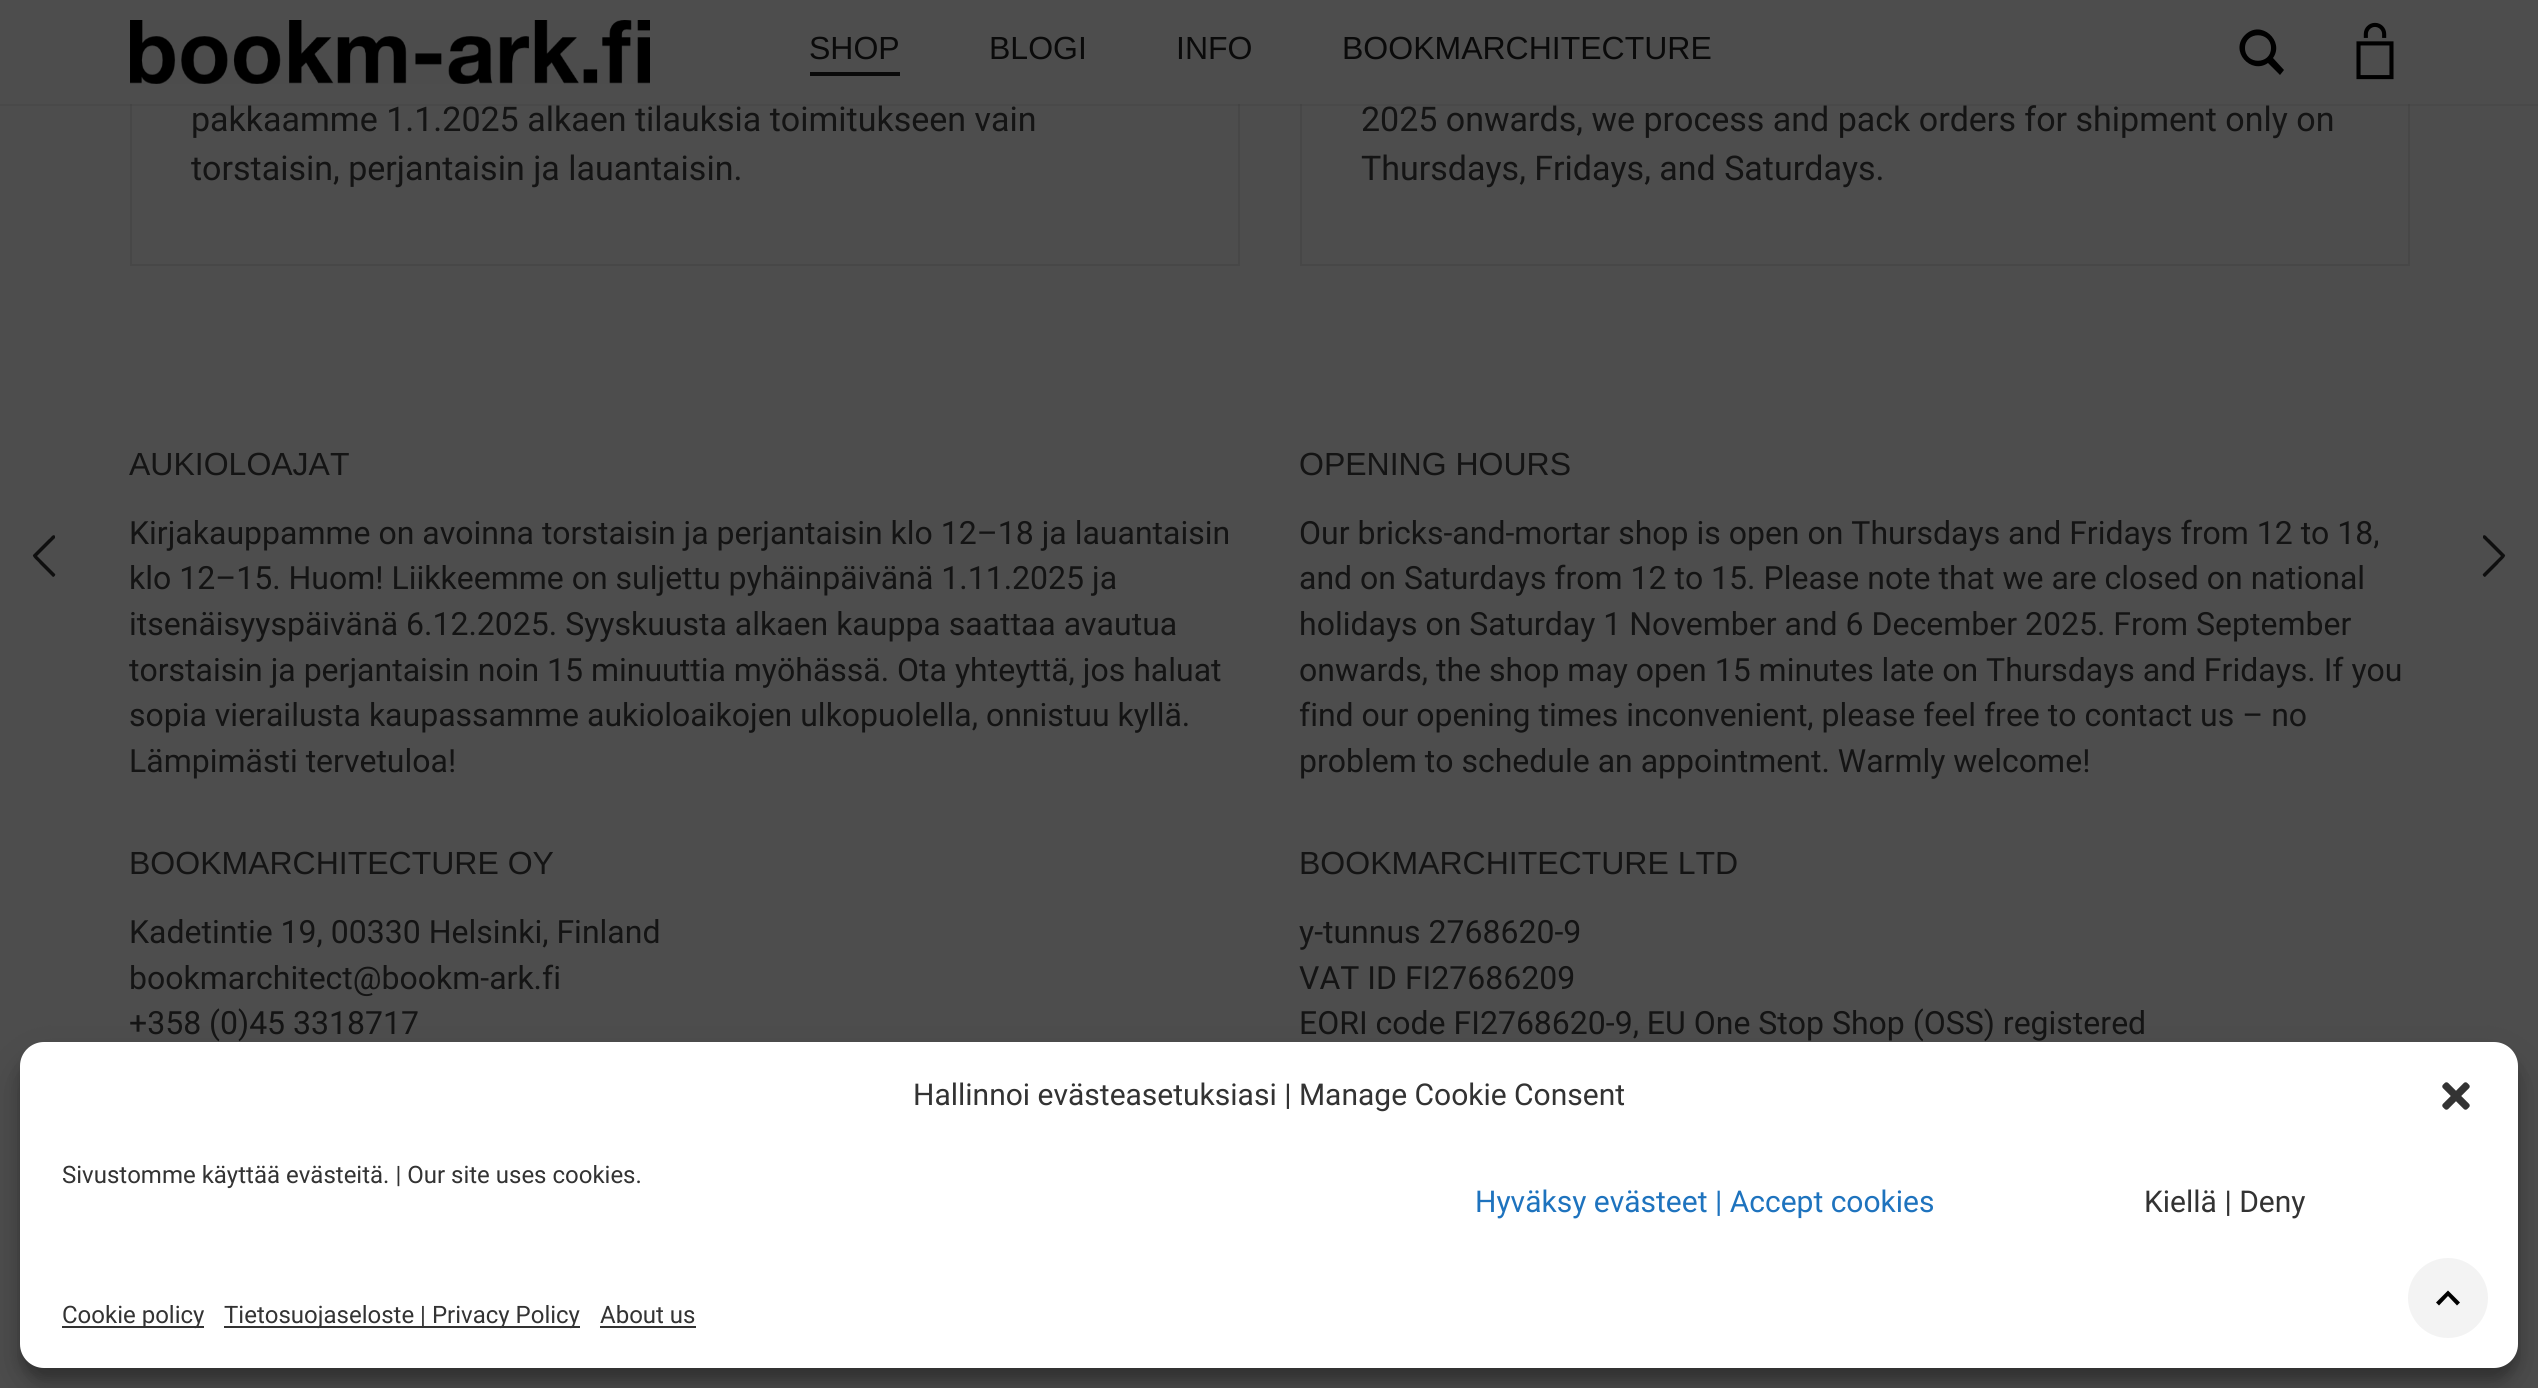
import math
import cairo



def rounded_rect(context, x, y, w, h, r):
    context.new_sub_path()
    for i, (u, v) in enumerate([(x + w - r, y + h - r), (x + r, y + h - r), (x + r, y + r), (x + w - r, y + r)]):
        context.arc(u, v, r, i * math.pi / 2, (i + 1) * math.pi / 2)
    context.close_path()


def draw_shadow(context, x, y, w, h, r, blur, alpha):
    context.push_group_with_content(cairo.Content.ALPHA)
    context.set_operator(cairo.Operator.SOURCE)
    for i in range(15, -16, -2):
        e = blur * i / 6
        if min(w, h) + 2 * e > 0:
            context.set_source_rgba(0, 0, 0, alpha * math.erfc((i - 1) / 8.5) / 2)
            rounded_rect(context, x - e, y - e, w + 2 * e, h + 2 * e, max(0, min(r + e + blur * .6, min(w, h) / 2 + e)))
            context.fill()
    context.mask(context.pop_group())


def draw_image(context, path, x, y, w, h):
    context.save()
    context.set_source_surface(cairo.ImageSurface.create_from_png(path), x, y)
    context.rectangle(x, y, w, h)
    context.fill()
    context.restore()


def draw(context):
    context.set_source_rgb(77 / 255, 77 / 255, 77 / 255)
    context.paint()
    context.rectangle(131, -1, 1108, 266)
    context.set_source_rgb(71 / 255, 71 / 255, 71 / 255)
    context.stroke()
    context.rectangle(1301, -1, 1108, 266)
    context.stroke()
    context.set_source_rgba(0, 0, 0, 0.05)
    context.rectangle(0, 104, 2538, 2)
    context.fill()
    context.set_source_rgb(77 / 255, 77 / 255, 77 / 255)
    context.rectangle(130, 0, 2280, 104)
    context.fill()
    draw_image(context, "images/1.png", 130, 20, 520, 64)
    context.set_source_rgb(10 / 255, 10 / 255, 10 / 255)
    context.rectangle(810, 72, 90, 4)
    context.fill()
    context.set_source_rgb(0, 0, 0)
    context.new_path()
    context.move_to(2284, 70)
    context.line_to(2273, 58)
    context.curve_to(2285, 41, 2261, 19, 2245, 35)
    context.curve_to(2229, 51, 2251, 75, 2268, 63)
    context.line_to(2280, 75)
    context.close_path()
    context.move_to(2245, 48)
    context.curve_to(2245, 31, 2271, 31, 2271, 48)
    context.curve_to(2271, 65, 2245, 65, 2245, 48)
    context.close_path()
    context.fill()
    draw_image(context, "images/2.png", 2356, 22, 38, 58)
    context.set_source_rgb(15 / 255, 15 / 255, 15 / 255)
    context.new_path()
    context.move_to(55, 574)
    context.curve_to(56, 575, 54, 577, 53, 577)
    context.line_to(40, 564)
    context.curve_to(39, 562, 32, 557, 33, 555)
    context.line_to(49, 539)
    context.curve_to(50, 539, 53, 533, 55, 536)
    context.line_to(55, 538)
    context.line_to(37, 556)
    context.close_path()
    context.fill()
    context.new_path()
    context.move_to(2483, 574)
    context.curve_to(2482, 575, 2484, 577, 2485, 577)
    context.line_to(2498, 564)
    context.curve_to(2499, 562, 2506, 557, 2505, 555)
    context.line_to(2489, 539)
    context.curve_to(2488, 539, 2485, 533, 2483, 536)
    context.line_to(2483, 538)
    context.line_to(2501, 556)
    context.close_path()
    context.fill()
    context.set_source_rgb(0, 0, 0)
    draw_shadow(context, 20, 1054, 2498, 326, 24, 6, 0.23)
    draw_shadow(context, 20, 1062, 2498, 326, 24, 20, 0.19)
    context.set_source_rgb(1, 1, 1)
    rounded_rect(context, 21, 1043, 2496, 324, 23)
    context.fill_preserve()
    context.stroke()
    draw_image(context, "images/3.png", 2442, 1082, 28, 28)
    context.set_source_rgb(51 / 255, 51 / 255, 51 / 255)
    context.rectangle(62, 1326, 142, 2)
    context.fill()
    context.rectangle(224, 1326, 356, 2)
    context.fill()
    context.rectangle(600, 1326, 96, 2)
    context.fill()
    context.set_source_rgb(243 / 255, 243 / 255, 243 / 255)
    context.arc(2448, 1298, 40, 0, 2 * math.pi)
    context.fill()
    context.set_source_rgb(0, 0, 0)
    context.new_path()
    context.move_to(2436, 1302.5)
    context.line_to(2439, 1305.5)
    context.line_to(2448, 1296)
    context.line_to(2457, 1305.5)
    context.line_to(2460, 1302.5)
    context.line_to(2448, 1290.5)
    context.close_path()
    context.fill()
    context.select_font_face("Arimo")
    context.set_font_size(32)
    context.set_source_rgb(10 / 255, 10 / 255, 10 / 255)
    context.move_to(809, 59)
    context.show_text("SHOP")
    context.move_to(989, 59)
    context.show_text("BLOGI")
    context.move_to(1176, 59)
    context.show_text("INFO")
    context.move_to(1342, 59)
    context.show_text("BOOKMARCHITECTURE")
    context.select_font_face("Roboto")
    context.set_font_size(34)
    context.set_source_rgb(20 / 255, 20 / 255, 20 / 255)
    context.move_to(191, 131)
    context.show_text("pakkaamme 1.1.2025 alkaen tilauksia toimitukseen vain")
    context.move_to(191, 180)
    context.show_text("torstaisin, perjantaisin ja lauantaisin.")
    context.move_to(1361, 131)
    context.show_text("2025 onwards, we process and pack orders for shipment only on")
    context.move_to(1361, 180)
    context.show_text("Thursdays, Fridays, and Saturdays.")
    context.select_font_face("Arimo")
    context.set_font_size(32)
    context.move_to(129, 475)
    context.show_text("AUKIOLOAJAT")
    context.select_font_face("Roboto")
    context.move_to(129, 544)
    context.show_text("Kirjakauppamme on avoinna torstaisin ja perjantaisin klo 12–18 ja lauantaisin")
    context.move_to(129, 589)
    context.show_text("klo 12–15. Huom! Liikkeemme on suljettu pyhäinpäivänä 1.11.2025 ja")
    context.move_to(129, 635)
    context.show_text("itsenäisyyspäivänä 6.12.2025. Syyskuusta alkaen kauppa saattaa avautua")
    context.move_to(129, 681)
    context.show_text("torstaisin ja perjantaisin noin 15 minuuttia myöhässä. Ota yhteyttä, jos haluat")
    context.move_to(129, 726)
    context.show_text("sopia vierailusta kaupassamme aukioloaikojen ulkopuolella, onnistuu kyllä.")
    context.move_to(129, 772)
    context.show_text("Lämpimästi tervetuloa!")
    context.select_font_face("Arimo")
    context.move_to(1299, 475)
    context.show_text("OPENING HOURS")
    context.select_font_face("Roboto")
    context.move_to(1299, 544)
    context.show_text("Our bricks-and-mortar shop is open on Thursdays and Fridays from 12 to 18,")
    context.move_to(1299, 589)
    context.show_text("and on Saturdays from 12 to 15. Please note that we are closed on national")
    context.move_to(1299, 635)
    context.show_text("holidays on Saturday 1 November and 6 December 2025. From September")
    context.move_to(1299, 681)
    context.show_text("onwards, the shop may open 15 minutes late on Thursdays and Fridays. If you")
    context.move_to(1299, 726)
    context.show_text("find our opening times inconvenient, please feel free to contact us – no")
    context.move_to(1299, 772)
    context.show_text("problem to schedule an appointment. Warmly welcome!")
    context.select_font_face("Arimo")
    context.move_to(129, 874)
    context.show_text("BOOKMARCHITECTURE OY")
    context.select_font_face("Roboto")
    context.move_to(129, 943)
    context.show_text("Kadetintie 19, 00330 Helsinki, Finland")
    context.move_to(129, 989)
    context.show_text("bookmarchitect@bookm-ark.fi")
    context.move_to(129, 1034)
    context.show_text("+358 (0)45 3318717")
    context.select_font_face("Arimo")
    context.move_to(1299, 874)
    context.show_text("BOOKMARCHITECTURE LTD")
    context.select_font_face("Roboto")
    context.move_to(1299, 943)
    context.show_text("y-tunnus 2768620-9")
    context.move_to(1299, 989)
    context.show_text("VAT ID FI27686209")
    context.move_to(1299, 1034)
    context.show_text("EORI code FI2768620-9, EU One Stop Shop (OSS) registered")
    context.set_font_size(30)
    context.set_source_rgb(51 / 255, 51 / 255, 51 / 255)
    context.move_to(913, 1105)
    context.show_text("Hallinnoi evästeasetuksiasi | Manage Cookie Consent")
    context.set_font_size(24)
    context.move_to(62, 1183)
    context.show_text("Sivustomme käyttää evästeitä. | Our site uses cookies.")
    context.set_font_size(30)
    context.set_source_rgb(30 / 255, 115 / 255, 190 / 255)
    context.move_to(1475, 1212)
    context.show_text("Hyväksy evästeet | Accept cookies")
    context.set_source_rgb(51 / 255, 51 / 255, 51 / 255)
    context.move_to(2144, 1212)
    context.show_text("Kiellä | Deny")
    context.set_font_size(24)
    context.move_to(62, 1323)
    context.show_text("Cookie policy")
    context.move_to(224, 1323)
    context.show_text("Tietosuojaseloste | Privacy Policy")
    context.move_to(600, 1323)
    context.show_text("About us")


surface = cairo.ImageSurface(cairo.Format.RGB24, 2538, 1388)
context = cairo.Context(surface)
options = cairo.FontOptions()
options.set_hint_metrics(cairo.HintMetrics.OFF)
options.set_hint_style(cairo.HintStyle.NONE)
context.set_font_options(options)
context.set_miter_limit(4)
draw(context)
surface.write_to_png("out.png")
